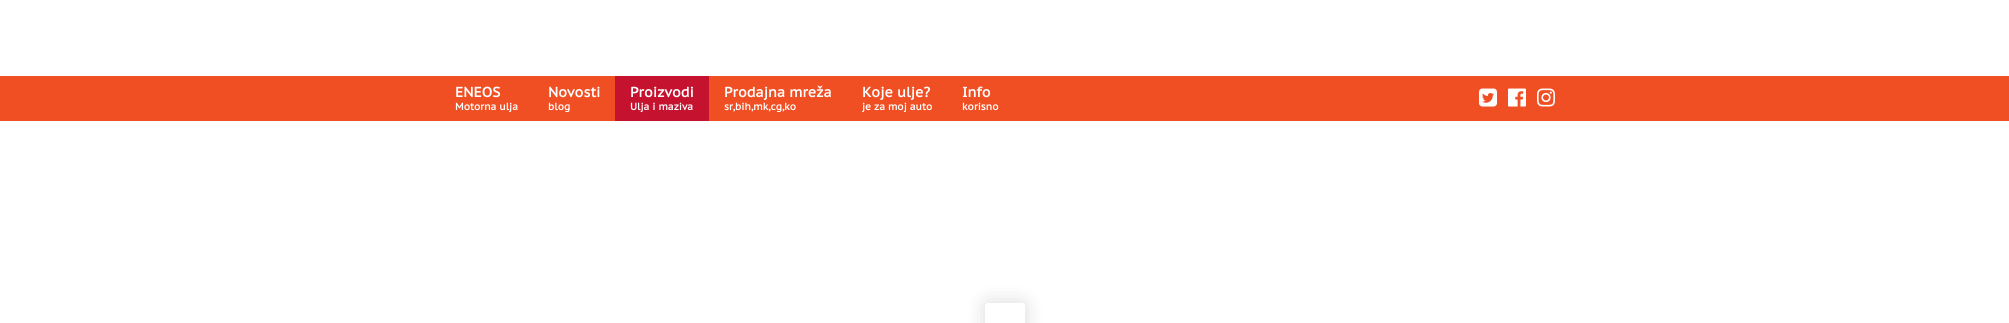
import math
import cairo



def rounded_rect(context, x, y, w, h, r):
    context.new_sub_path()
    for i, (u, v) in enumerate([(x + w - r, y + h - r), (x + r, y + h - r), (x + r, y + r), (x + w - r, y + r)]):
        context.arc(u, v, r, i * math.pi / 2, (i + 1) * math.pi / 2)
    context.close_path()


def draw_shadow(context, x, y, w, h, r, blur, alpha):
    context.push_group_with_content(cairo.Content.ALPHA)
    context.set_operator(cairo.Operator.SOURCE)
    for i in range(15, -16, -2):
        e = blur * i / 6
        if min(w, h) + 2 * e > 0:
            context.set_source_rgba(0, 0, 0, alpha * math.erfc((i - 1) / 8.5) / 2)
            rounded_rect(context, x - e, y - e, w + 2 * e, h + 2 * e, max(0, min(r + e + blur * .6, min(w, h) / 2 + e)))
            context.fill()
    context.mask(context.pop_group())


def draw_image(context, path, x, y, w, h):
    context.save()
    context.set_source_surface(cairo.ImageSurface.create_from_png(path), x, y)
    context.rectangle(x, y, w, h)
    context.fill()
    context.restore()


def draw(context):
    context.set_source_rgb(1, 1, 1)
    context.paint()
    context.set_source_rgb(240 / 255, 78 / 255, 35 / 255)
    context.rectangle(0, 76, 2009, 45)
    context.fill()
    context.set_source_rgb(196 / 255, 18 / 255, 47 / 255)
    context.rectangle(615, 76, 94, 45)
    context.fill()
    draw_image(context, "images/1.png", 1479, 88, 18, 19)
    draw_image(context, "images/2.png", 1508, 88, 18, 19)
    draw_image(context, "images/3.png", 1537, 88, 18, 19)
    context.set_source_rgb(0, 0, 0)
    draw_shadow(context, 985, 303, 40, 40, 3, 10, 0.15)
    context.set_source_rgb(1, 1, 1)
    rounded_rect(context, 985, 303, 40, 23, 3)
    context.fill()
    context.select_font_face("PT Sans Caption", cairo.FontSlant.NORMAL, cairo.FontWeight.BOLD)
    context.set_font_size(14)
    context.move_to(455, 97)
    context.show_text("ENEOS")
    context.set_font_size(10)
    context.move_to(455, 110)
    context.show_text("Motorna ulja")
    context.set_font_size(14)
    context.move_to(548, 97)
    context.show_text("Novosti")
    context.set_font_size(10)
    context.move_to(548, 110)
    context.show_text("blog")
    context.set_font_size(14)
    context.move_to(630, 97)
    context.show_text("Proizvodi")
    context.set_font_size(10)
    context.move_to(630, 110)
    context.show_text("Ulja i maziva")
    context.set_font_size(14)
    context.move_to(724, 97)
    context.show_text("Prodajna mreža")
    context.set_font_size(10)
    context.move_to(724, 110)
    context.show_text("sr,bih,mk,cg,ko")
    context.set_font_size(14)
    context.move_to(862, 97)
    context.show_text("Koje ulje?")
    context.set_font_size(10)
    context.move_to(862, 110)
    context.show_text("je za moj auto")
    context.set_font_size(14)
    context.move_to(962, 97)
    context.show_text("Info")
    context.set_font_size(10)
    context.move_to(962, 110)
    context.show_text("korisno")


surface = cairo.ImageSurface(cairo.Format.RGB24, 2009, 323)
context = cairo.Context(surface)
options = cairo.FontOptions()
options.set_hint_metrics(cairo.HintMetrics.OFF)
options.set_hint_style(cairo.HintStyle.NONE)
context.set_font_options(options)
context.set_miter_limit(4)
draw(context)
surface.write_to_png("out.png")
